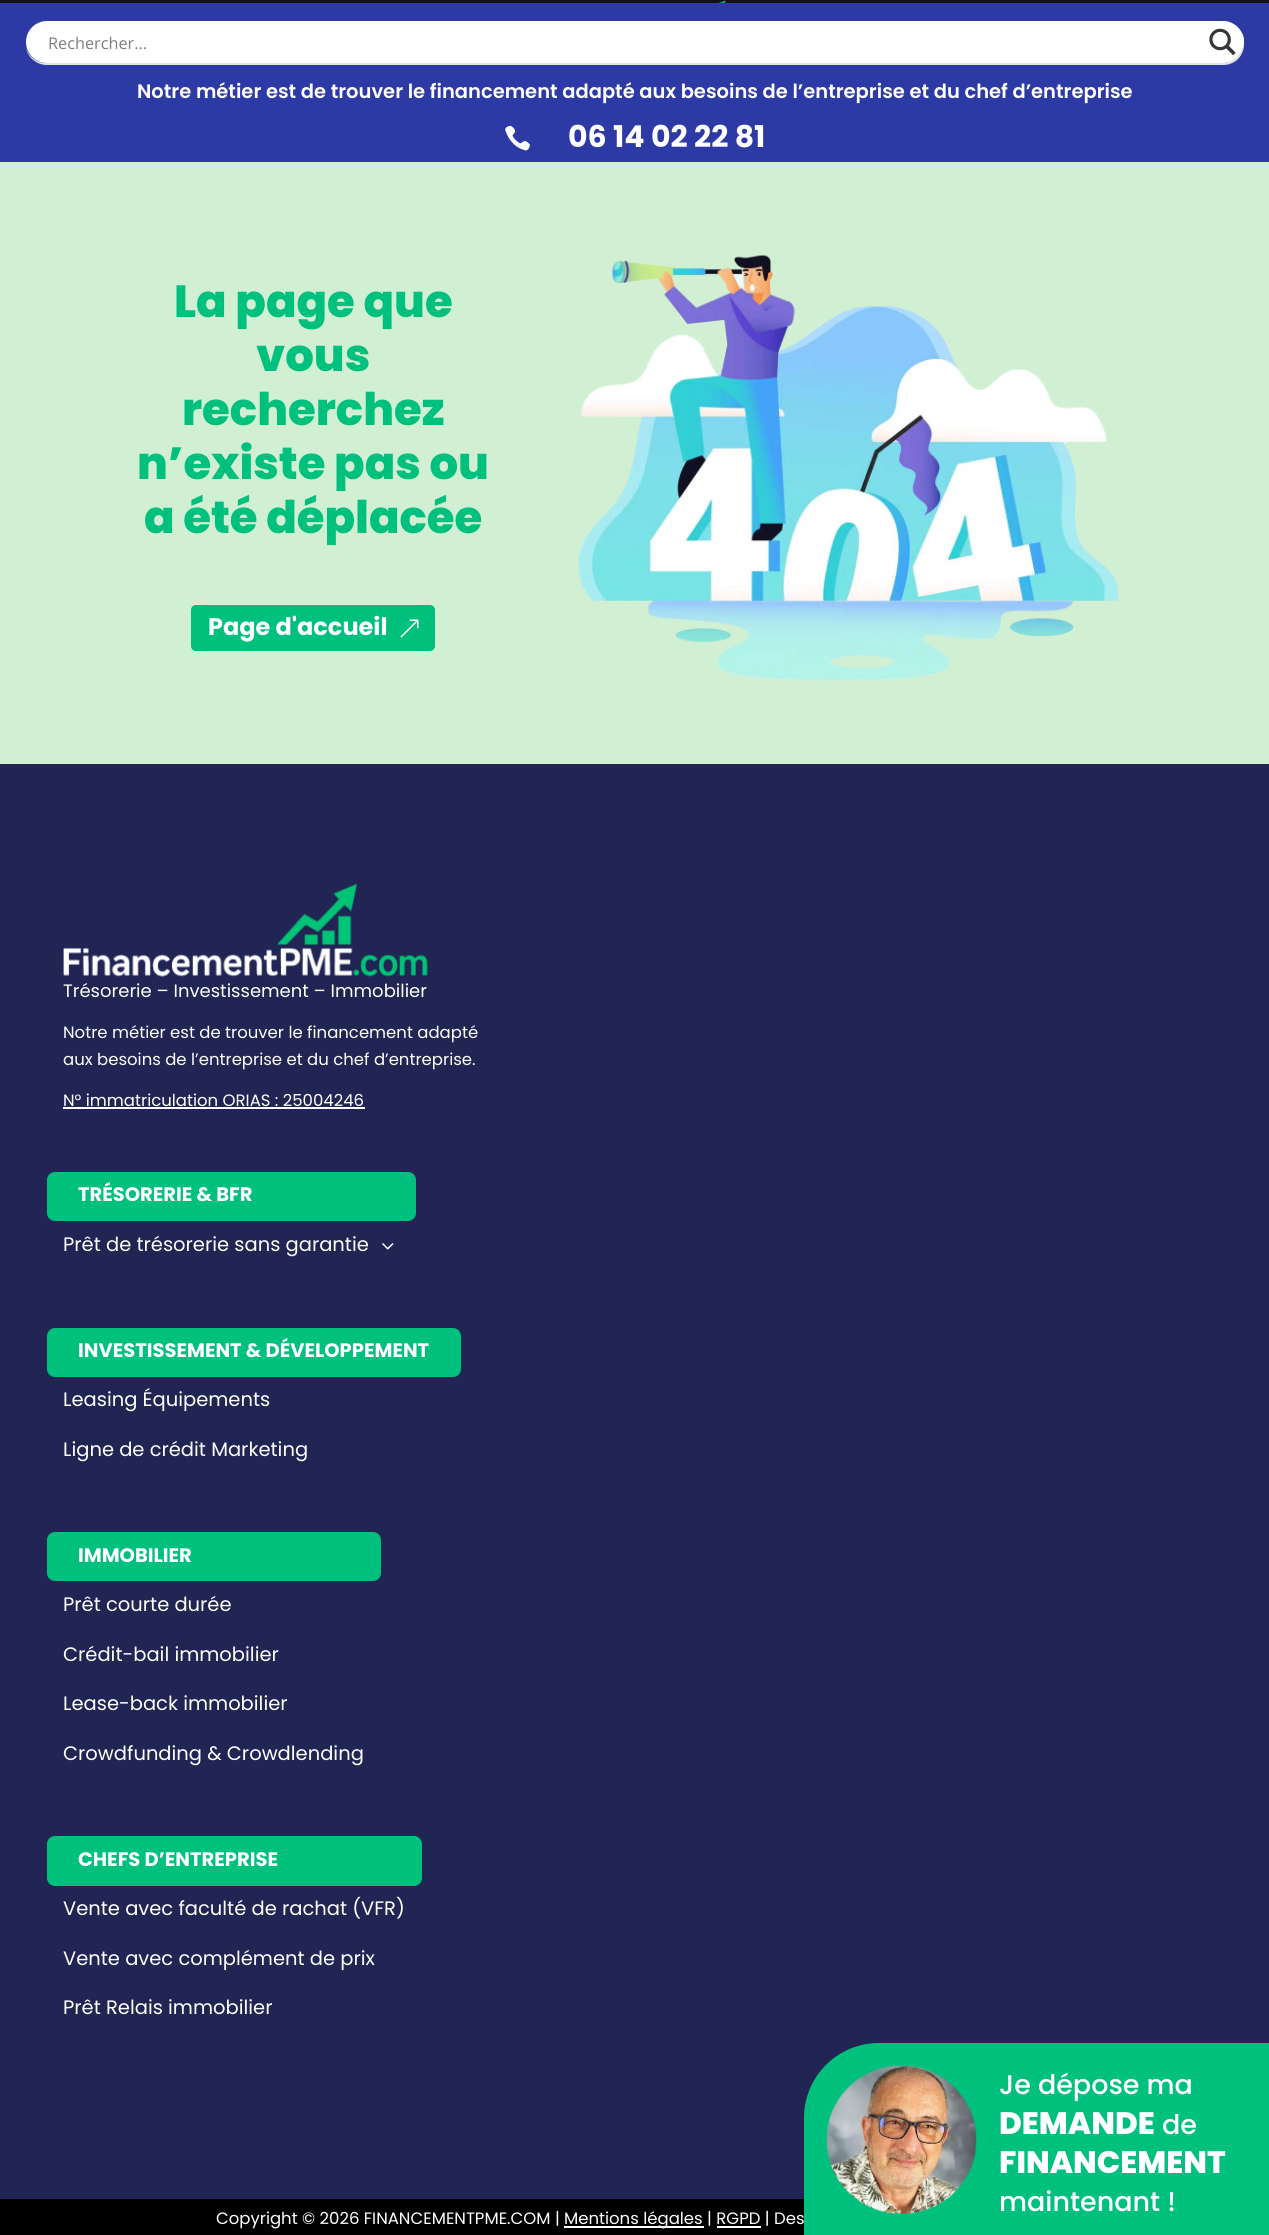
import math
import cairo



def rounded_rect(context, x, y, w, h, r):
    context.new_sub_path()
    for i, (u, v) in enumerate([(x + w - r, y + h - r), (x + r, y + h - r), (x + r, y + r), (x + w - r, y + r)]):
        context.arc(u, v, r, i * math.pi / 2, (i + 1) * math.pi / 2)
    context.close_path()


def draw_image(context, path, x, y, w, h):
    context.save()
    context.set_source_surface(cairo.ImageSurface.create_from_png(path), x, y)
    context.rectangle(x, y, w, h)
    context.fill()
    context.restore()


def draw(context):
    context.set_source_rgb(209 / 255, 239 / 255, 211 / 255)
    context.paint()
    context.set_source_rgb(17 / 255, 17 / 255, 17 / 255)
    context.rectangle(0, 0, 1269, 3)
    context.fill()
    draw_image(context, "images/1.png", 718, 0, 9, 3)
    context.set_source_rgb(45 / 255, 58 / 255, 166 / 255)
    context.rectangle(0, 3, 1269, 159)
    context.fill()
    context.set_source_rgb(228 / 255, 228 / 255, 228 / 255)
    context.new_path()
    context.move_to(26, 48)
    context.curve_to(28, 58, 37, 65, 47, 65)
    context.line_to(1223, 65)
    context.curve_to(1235, 65, 1244, 56, 1244, 44)
    context.line_to(1243, 38)
    context.line_to(1244, 42)
    context.curve_to(1244, 54, 1234, 63, 1222, 63)
    context.line_to(46, 63)
    context.curve_to(37, 63, 29, 57, 26, 48)
    context.close_path()
    context.fill()
    context.set_source_rgb(1, 1, 1)
    rounded_rect(context, 26, 21, 1218, 42, 21)
    context.fill()
    context.save()
    context.rectangle(1202, 21, 42, 42)
    context.clip()
    context.set_source_rgba(1, 1, 1, 0.64)
    context.set_fill_rule(cairo.FillRule.EVEN_ODD)
    context.new_path()
    context.move_to(1200, 22)
    context.line_to(1200, 63)
    context.line_to(1053, 63)
    context.line_to(1053, 21)
    context.line_to(1223, 21)
    context.line_to(1229, 22)
    context.close_path()
    context.move_to(1242, 51)
    context.curve_to(1245, 45, 1245, 39, 1242, 33)
    context.close_path()
    context.fill()
    context.restore()
    draw_image(context, "images/2.png", 1209, 28, 27, 28)
    draw_image(context, "images/3.png", 505, 125, 25, 26)
    context.set_source_rgb(0, 192 / 255, 125 / 255)
    rounded_rect(context, 191, 605, 244, 46, 5)
    context.fill()
    draw_image(context, "images/4.png", 400, 619, 19, 19)
    draw_image(context, "images/5.png", 578, 254, 541, 427)
    context.set_source_rgb(33 / 255, 37 / 255, 84 / 255)
    context.rectangle(0, 764, 1269, 1435)
    context.fill()
    draw_image(context, "images/6.png", 63, 883, 365, 94)
    context.set_source_rgb(1, 1, 1)
    context.rectangle(63, 1107, 302, 2)
    context.fill()
    context.set_source_rgb(0, 192 / 255, 125 / 255)
    rounded_rect(context, 47, 1172, 369, 49, 8)
    context.fill()
    draw_image(context, "images/7.png", 382, 1243, 12, 7)
    rounded_rect(context, 47, 1328, 414, 49, 8)
    context.fill()
    rounded_rect(context, 47, 1532, 334, 49, 8)
    context.fill()
    rounded_rect(context, 47, 1836, 375, 50, 8)
    context.fill()
    context.set_source_rgb(0, 0, 0)
    context.rectangle(0, 2199, 804, 36)
    context.fill()
    context.set_source_rgb(1, 1, 1)
    context.rectangle(564, 2226, 140, 2)
    context.fill()
    context.rectangle(717, 2226, 44, 2)
    context.fill()
    context.select_font_face("Open Sans")
    context.set_font_size(16.25)
    context.set_source_rgb(125 / 255, 125 / 255, 125 / 255)
    context.move_to(48, 49)
    context.show_text("Rechercher...")
    context.select_font_face("Poppins SemiBold")
    context.set_font_size(19.5)
    context.set_source_rgb(1, 1, 1)
    context.move_to(137, 98)
    context.show_text("Notre métier est de trouver le financement adapté aux besoins de l’entreprise et du chef d’entreprise")
    context.select_font_face("Poppins", cairo.FontSlant.NORMAL, cairo.FontWeight.BOLD)
    context.set_font_size(30)
    context.move_to(568, 147)
    context.show_text("06 14 02 22 81")
    context.select_font_face("Poppins ExtraBold")
    context.set_font_size(45)
    context.set_source_rgb(0, 192 / 255, 125 / 255)
    context.move_to(174, 317)
    context.show_text("La page que")
    context.move_to(256, 371)
    context.show_text("vous")
    context.move_to(182, 425)
    context.show_text("recherchez")
    context.move_to(137, 479)
    context.show_text("n’existe pas ou")
    context.move_to(144, 533)
    context.show_text("a été déplacée")
    context.select_font_face("Poppins", cairo.FontSlant.NORMAL, cairo.FontWeight.BOLD)
    context.set_font_size(24)
    context.set_source_rgb(1, 1, 1)
    context.move_to(208, 635)
    context.show_text("Page d'accueil")
    context.select_font_face("Poppins")
    context.set_font_size(18)
    context.move_to(63, 997)
    context.show_text("Trésorerie – Investissement – Immobilier")
    context.set_font_size(16.5)
    context.move_to(63, 1038)
    context.show_text("Notre métier est de trouver le financement adapté")
    context.move_to(63, 1065)
    context.show_text("aux besoins de l’entreprise et du chef d’entreprise.")
    context.move_to(63, 1106)
    context.show_text("N° immatriculation ORIAS : 25004246")
    context.select_font_face("Poppins", cairo.FontSlant.NORMAL, cairo.FontWeight.BOLD)
    context.set_font_size(19.5)
    context.move_to(78, 1201)
    context.show_text("TRÉSORERIE & BFR")
    context.select_font_face("Poppins")
    context.move_to(63, 1251)
    context.show_text("Prêt de trésorerie sans garantie")
    context.select_font_face("Poppins", cairo.FontSlant.NORMAL, cairo.FontWeight.BOLD)
    context.move_to(78, 1357)
    context.show_text("INVESTISSEMENT & DÉVELOPPEMENT")
    context.select_font_face("Poppins")
    context.move_to(63, 1406)
    context.show_text("Leasing Équipements")
    context.move_to(63, 1456)
    context.show_text("Ligne de crédit Marketing")
    context.select_font_face("Poppins", cairo.FontSlant.NORMAL, cairo.FontWeight.BOLD)
    context.move_to(78, 1562)
    context.show_text("IMMOBILIER")
    context.select_font_face("Poppins")
    context.move_to(63, 1611)
    context.show_text("Prêt courte durée")
    context.move_to(63, 1661)
    context.show_text("Crédit-bail immobilier")
    context.move_to(63, 1710)
    context.show_text("Lease-back immobilier")
    context.move_to(63, 1760)
    context.show_text("Crowdfunding & Crowdlending")
    context.select_font_face("Poppins", cairo.FontSlant.NORMAL, cairo.FontWeight.BOLD)
    context.move_to(78, 1866)
    context.show_text("CHEFS D’ENTREPRISE")
    context.select_font_face("Poppins")
    context.move_to(63, 1915)
    context.show_text("Vente avec faculté de rachat (VFR)")
    context.move_to(63, 1965)
    context.show_text("Vente avec complément de prix")
    context.move_to(63, 2014)
    context.show_text("Prêt Relais immobilier")
    context.set_font_size(16.5)
    context.move_to(216, 2224)
    context.show_text("Copyright © 2026 FINANCEMENTPME.COM |")
    context.move_to(564, 2224)
    context.show_text("Mentions légales | RGPD | Des")
    context.set_source_rgb(0, 192 / 255, 125 / 255)
    context.new_path()
    context.move_to(879, 2043)
    context.line_to(1269, 2043)
    context.line_to(1269, 2235)
    context.line_to(804, 2235)
    context.line_to(804, 2118)
    context.curve_to(804, 2076.5, 837.5, 2043, 879, 2043)
    context.close_path()
    context.fill()
    draw_image(context, "images/8.png", 826, 2065, 151, 149)
    context.select_font_face("Poppins Medium")
    context.set_font_size(27)
    context.set_source_rgb(1, 1, 1)
    context.move_to(999, 2094)
    context.show_text("Je dépose ma")
    context.select_font_face("Poppins ExtraBold")
    context.set_font_size(31)
    context.move_to(999, 2134)
    context.show_text("DEMANDE")
    context.select_font_face("Poppins Medium")
    context.set_font_size(27)
    context.move_to(1162, 2134)
    context.show_text("de")
    context.select_font_face("Poppins ExtraBold")
    context.set_font_size(31)
    context.move_to(999, 2173)
    context.show_text("FINANCEMENT")
    context.select_font_face("Poppins Medium")
    context.set_font_size(27)
    context.move_to(999, 2211)
    context.show_text("maintenant !")


surface = cairo.ImageSurface(cairo.Format.RGB24, 1269, 2235)
context = cairo.Context(surface)
options = cairo.FontOptions()
options.set_hint_metrics(cairo.HintMetrics.OFF)
options.set_hint_style(cairo.HintStyle.NONE)
context.set_font_options(options)
context.set_miter_limit(4)
draw(context)
surface.write_to_png("out.png")
